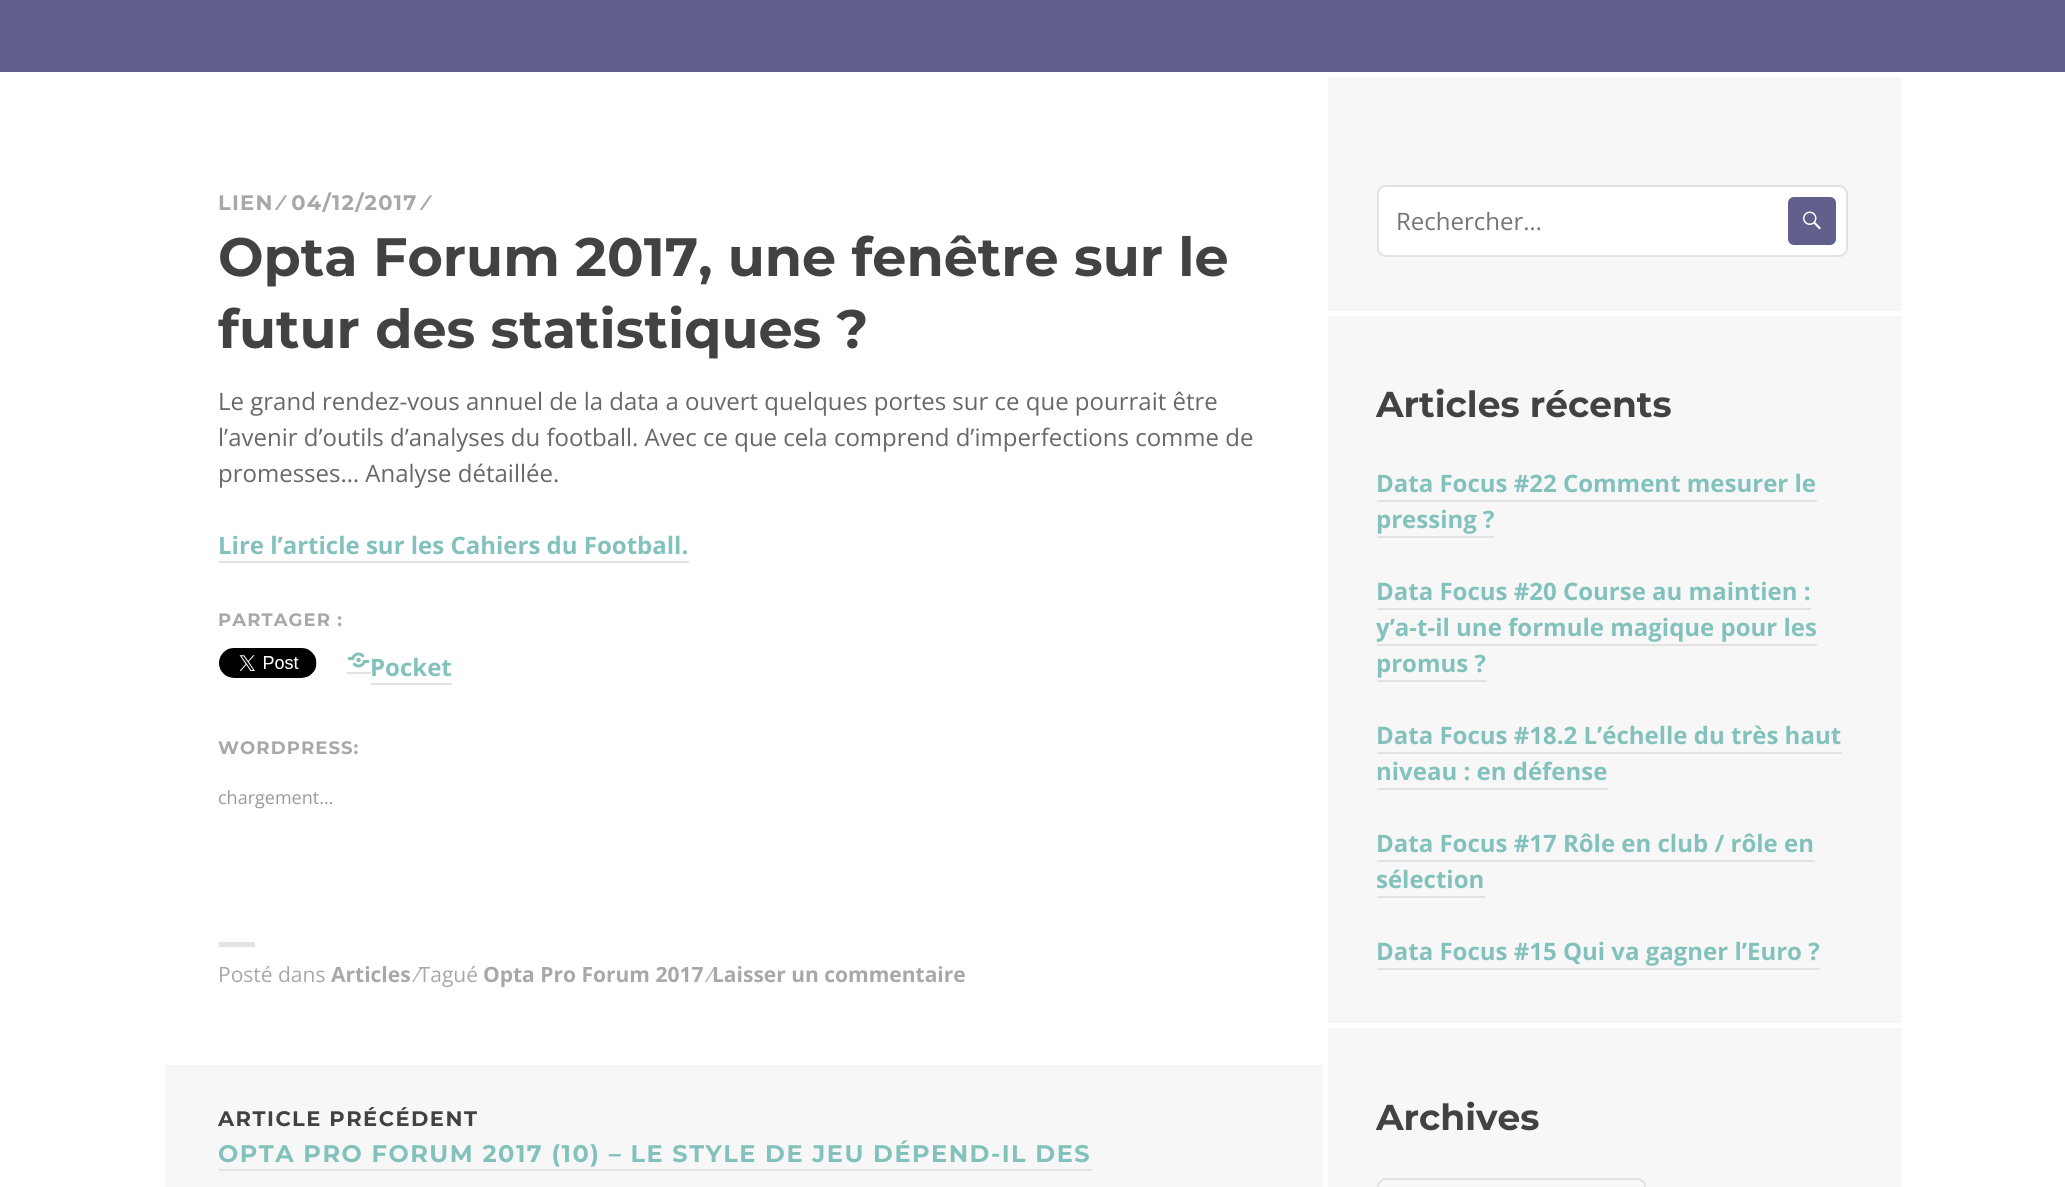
import math
import cairo



def draw_spaced(context, x, y, s, letter, word):
    context.move_to(x, y)
    for ch in s:
        context.show_text(ch)
        context.rel_move_to(letter + word * (ch == ' '), 0)


def rounded_rect(context, x, y, w, h, r):
    context.new_sub_path()
    for i, (u, v) in enumerate([(x + w - r, y + h - r), (x + r, y + h - r), (x + r, y + r), (x + w - r, y + r)]):
        context.arc(u, v, r, i * math.pi / 2, (i + 1) * math.pi / 2)
    context.close_path()


def draw_image(context, path, x, y, w, h):
    context.save()
    context.set_source_surface(cairo.ImageSurface.create_from_png(path), x, y)
    context.rectangle(x, y, w, h)
    context.fill()
    context.restore()


def draw(context):
    context.set_source_rgb(1, 1, 1)
    context.paint()
    context.set_source_rgb(97 / 255, 95 / 255, 139 / 255)
    context.rectangle(0, 0, 2065, 72)
    context.fill()
    context.set_source_rgb(226 / 255, 226 / 255, 226 / 255)
    context.rectangle(219, 561, 470, 2)
    context.fill()
    draw_image(context, "images/1.png", 219, 648, 98, 30)
    context.rectangle(347, 672, 24, 2)
    context.fill()
    context.rectangle(371, 683, 81, 2)
    context.fill()
    draw_image(context, "images/2.png", 348, 652, 21, 16)
    context.set_source_rgb(227 / 255, 227 / 255, 227 / 255)
    context.rectangle(219, 942, 36, 5)
    context.fill()
    context.set_source_rgb(247 / 255, 247 / 255, 247 / 255)
    context.rectangle(165, 1065, 1158, 122)
    context.fill()
    context.set_source_rgb(226 / 255, 226 / 255, 226 / 255)
    context.rectangle(219, 1169, 873, 2)
    context.fill()
    context.set_source_rgb(247 / 255, 247 / 255, 247 / 255)
    context.rectangle(1328, 77, 574, 1110)
    context.fill()
    context.set_source_rgb(1, 1, 1)
    rounded_rect(context, 1378, 186, 469, 70, 8)
    context.fill_preserve()
    context.set_source_rgb(226 / 255, 226 / 255, 226 / 255)
    context.stroke()
    context.set_source_rgb(97 / 255, 95 / 255, 139 / 255)
    rounded_rect(context, 1788, 197, 48, 48, 6)
    context.fill()
    draw_image(context, "images/3.png", 1803, 211, 18, 19)
    context.set_source_rgb(1, 1, 1)
    context.rectangle(1323, 311, 579, 5)
    context.fill()
    context.set_source_rgb(226 / 255, 226 / 255, 226 / 255)
    context.rectangle(1377, 500, 440, 2)
    context.fill()
    context.rectangle(1377, 536, 117, 2)
    context.fill()
    context.rectangle(1377, 608, 434, 2)
    context.fill()
    context.rectangle(1377, 644, 440, 2)
    context.fill()
    context.rectangle(1377, 680, 110, 2)
    context.fill()
    context.rectangle(1377, 752, 465, 2)
    context.fill()
    context.rectangle(1377, 788, 231, 2)
    context.fill()
    context.rectangle(1377, 860, 438, 2)
    context.fill()
    context.rectangle(1377, 896, 108, 2)
    context.fill()
    context.rectangle(1377, 968, 443, 2)
    context.fill()
    context.set_source_rgb(1, 1, 1)
    context.rectangle(1323, 1023, 579, 5)
    context.fill()
    rounded_rect(context, 1378, 1179, 267, 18, 8)
    context.set_source_rgb(226 / 255, 226 / 255, 226 / 255)
    context.stroke()
    context.select_font_face("Montserrat", cairo.FontSlant.NORMAL, cairo.FontWeight.BOLD)
    context.set_font_size(21)
    context.set_source_rgb(168 / 255, 168 / 255, 168 / 255)
    draw_spaced(context, 218, 210, "LIEN", 1.25, 0)
    draw_spaced(context, 279, 210, "⁄ 04/12/2017", 1.25, 0)
    draw_spaced(context, 424, 210, "⁄", 1.25, 0)
    context.set_font_size(54)
    context.set_source_rgb(66 / 255, 66 / 255, 66 / 255)
    context.move_to(218, 276)
    context.show_text("Opta Forum 2017, une fenêtre sur le")
    context.move_to(218, 348)
    context.show_text("futur des statistiques ?")
    context.select_font_face("Open Sans")
    context.set_font_size(24)
    context.set_source_rgb(104 / 255, 104 / 255, 104 / 255)
    context.move_to(218, 410)
    context.show_text("Le grand rendez-vous annuel de la data a ouvert quelques portes sur ce que pourrait être")
    context.move_to(218, 446)
    context.show_text("l’avenir d’outils d’analyses du football. Avec ce que cela comprend d’imperfections comme de")
    context.move_to(218, 482)
    context.show_text("promesses… Analyse détaillée.")
    context.select_font_face("Open Sans", cairo.FontSlant.NORMAL, cairo.FontWeight.BOLD)
    context.set_source_rgb(131 / 255, 194 / 255, 188 / 255)
    context.move_to(218, 554)
    context.show_text("Lire l’article sur les Cahiers du Football.")
    context.select_font_face("Montserrat", cairo.FontSlant.NORMAL, cairo.FontWeight.BOLD)
    context.set_font_size(18)
    context.set_source_rgb(168 / 255, 168 / 255, 168 / 255)
    draw_spaced(context, 218, 626, "PARTAGER :", 1.1, 0)
    context.select_font_face("Open Sans", cairo.FontSlant.NORMAL, cairo.FontWeight.BOLD)
    context.set_font_size(24)
    context.set_source_rgb(131 / 255, 194 / 255, 188 / 255)
    context.move_to(370, 676)
    context.show_text("Pocket")
    context.select_font_face("Montserrat", cairo.FontSlant.NORMAL, cairo.FontWeight.BOLD)
    context.set_font_size(18)
    context.set_source_rgb(168 / 255, 168 / 255, 168 / 255)
    draw_spaced(context, 218, 754, "WORDPRESS:", 1.1, 0)
    context.select_font_face("Open Sans")
    context.set_source_rgb(153 / 255, 153 / 255, 153 / 255)
    context.move_to(218, 804)
    context.show_text("chargement…")
    context.set_font_size(21)
    context.set_source_rgb(168 / 255, 168 / 255, 168 / 255)
    context.move_to(218, 982)
    context.show_text("Posté dans")
    context.select_font_face("Open Sans", cairo.FontSlant.NORMAL, cairo.FontWeight.BOLD)
    context.move_to(331, 982)
    context.show_text("Articles")
    context.select_font_face("Open Sans")
    context.move_to(416, 982)
    context.show_text("⁄Tagué")
    context.select_font_face("Open Sans", cairo.FontSlant.NORMAL, cairo.FontWeight.BOLD)
    context.move_to(483, 982)
    context.show_text("Opta Pro Forum 2017")
    context.select_font_face("Open Sans")
    context.move_to(709, 982)
    context.show_text("⁄")
    context.select_font_face("Open Sans", cairo.FontSlant.NORMAL, cairo.FontWeight.BOLD)
    context.move_to(712, 982)
    context.show_text("Laisser un commentaire")
    context.select_font_face("Montserrat", cairo.FontSlant.NORMAL, cairo.FontWeight.BOLD)
    context.set_source_rgb(66 / 255, 66 / 255, 66 / 255)
    draw_spaced(context, 218, 1126, "ARTICLE PRÉCÉDENT", 1.5, 0)
    context.set_font_size(24)
    context.set_source_rgb(131 / 255, 194 / 255, 188 / 255)
    draw_spaced(context, 218, 1162, "OPTA PRO FORUM 2017 (10) – LE STYLE DE JEU DÉPEND-IL DES", 1.5, 0)
    context.select_font_face("Open Sans")
    context.set_source_rgb(117 / 255, 117 / 255, 117 / 255)
    context.move_to(1396, 230)
    context.show_text("Rechercher…")
    context.select_font_face("Montserrat", cairo.FontSlant.NORMAL, cairo.FontWeight.BOLD)
    context.set_font_size(36)
    context.set_source_rgb(66 / 255, 66 / 255, 66 / 255)
    context.move_to(1376, 417)
    context.show_text("Articles récents")
    context.select_font_face("Open Sans", cairo.FontSlant.NORMAL, cairo.FontWeight.BOLD)
    context.set_font_size(24)
    context.set_source_rgb(131 / 255, 194 / 255, 188 / 255)
    context.move_to(1376, 492)
    context.show_text("Data Focus #22 Comment mesurer le")
    context.move_to(1376, 528)
    context.show_text("pressing ?")
    context.move_to(1376, 600)
    context.show_text("Data Focus #20 Course au maintien :")
    context.move_to(1376, 636)
    context.show_text("y’a-t-il une formule magique pour les")
    context.move_to(1376, 672)
    context.show_text("promus ?")
    context.move_to(1376, 744)
    context.show_text("Data Focus #18.2 L’échelle du très haut")
    context.move_to(1376, 780)
    context.show_text("niveau : en défense")
    context.move_to(1376, 852)
    context.show_text("Data Focus #17 Rôle en club / rôle en")
    context.move_to(1376, 888)
    context.show_text("sélection")
    context.move_to(1376, 960)
    context.show_text("Data Focus #15 Qui va gagner l’Euro ?")
    context.select_font_face("Montserrat", cairo.FontSlant.NORMAL, cairo.FontWeight.BOLD)
    context.set_font_size(36)
    context.set_source_rgb(66 / 255, 66 / 255, 66 / 255)
    context.move_to(1376, 1130)
    context.show_text("Archives")


surface = cairo.ImageSurface(cairo.Format.RGB24, 2065, 1187)
context = cairo.Context(surface)
options = cairo.FontOptions()
options.set_hint_metrics(cairo.HintMetrics.OFF)
options.set_hint_style(cairo.HintStyle.NONE)
context.set_font_options(options)
context.set_miter_limit(4)
draw(context)
surface.write_to_png("out.png")
